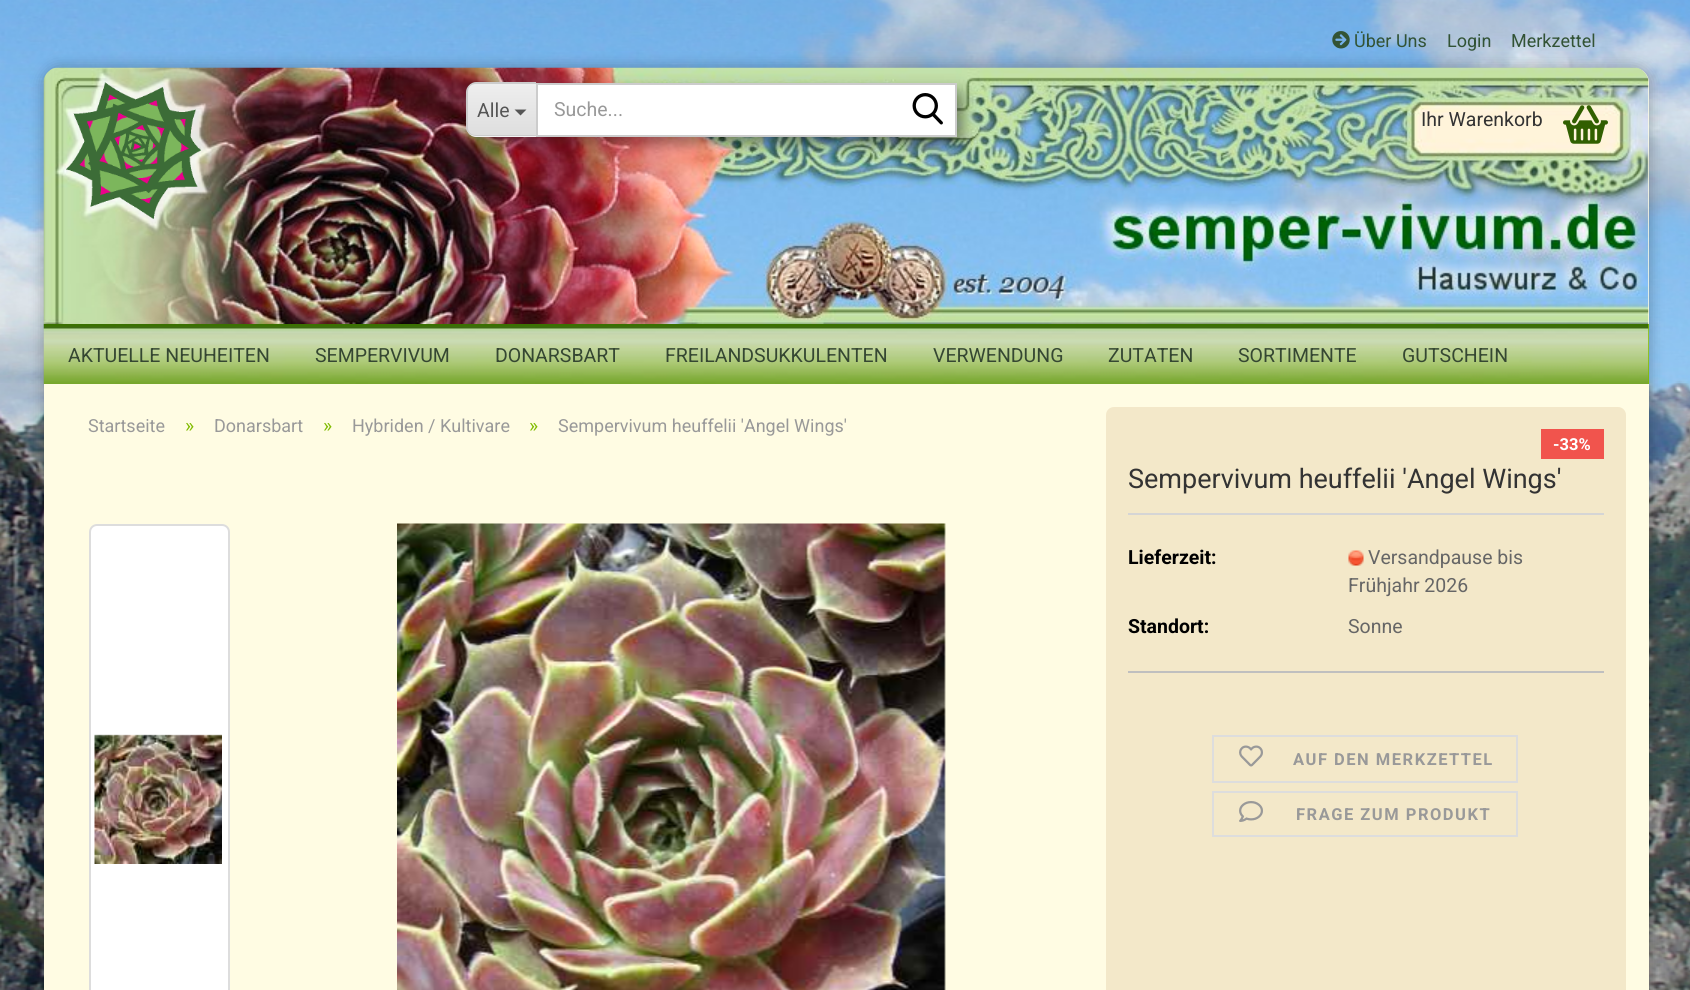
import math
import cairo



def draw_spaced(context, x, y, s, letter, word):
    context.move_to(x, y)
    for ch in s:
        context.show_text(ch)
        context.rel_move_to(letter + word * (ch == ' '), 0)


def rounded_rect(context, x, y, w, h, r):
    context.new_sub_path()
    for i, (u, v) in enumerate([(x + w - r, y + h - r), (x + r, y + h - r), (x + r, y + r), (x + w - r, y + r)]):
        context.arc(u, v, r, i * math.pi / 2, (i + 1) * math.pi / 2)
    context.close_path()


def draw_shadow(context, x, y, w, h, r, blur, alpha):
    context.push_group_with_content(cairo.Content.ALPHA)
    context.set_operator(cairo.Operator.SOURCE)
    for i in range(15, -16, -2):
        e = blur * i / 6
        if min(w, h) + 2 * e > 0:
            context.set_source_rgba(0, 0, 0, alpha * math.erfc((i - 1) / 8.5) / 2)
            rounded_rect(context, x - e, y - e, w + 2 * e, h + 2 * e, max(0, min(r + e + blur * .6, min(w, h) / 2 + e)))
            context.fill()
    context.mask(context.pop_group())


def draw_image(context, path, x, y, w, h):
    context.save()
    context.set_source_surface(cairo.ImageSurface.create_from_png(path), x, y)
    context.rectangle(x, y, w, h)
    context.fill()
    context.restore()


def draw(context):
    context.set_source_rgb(1, 1, 1)
    context.paint()
    draw_image(context, "images/1.png", 0, 0, 1690, 990)
    context.set_source_rgb(0, 0, 0)
    draw_shadow(context, 44, 68, 1605, 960, 15, 7.5, 0.3)
    context.set_source_rgb(1, 252 / 255, 227 / 255)
    rounded_rect(context, 44, 68, 1605, 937, 15)
    context.fill()
    draw_image(context, "images/2.png", 43, 67, 1606, 257)
    draw_image(context, "images/3.png", 1332, 31, 18, 18)
    draw_image(context, "images/4.png", 66, 82, 135, 137)
    context.set_source_rgb(243 / 255, 243 / 255, 243 / 255)
    context.new_path()
    context.move_to(476, 83)
    context.line_to(536, 83)
    context.line_to(536, 137)
    context.line_to(476, 137)
    context.curve_to(471, 137, 467, 133, 467, 128)
    context.line_to(467, 92)
    context.curve_to(467, 87, 471, 83, 476, 83)
    context.close_path()
    context.fill()
    context.save()
    context.new_path()
    context.move_to(476, 83)
    context.line_to(536, 83)
    context.line_to(536, 137)
    context.line_to(476, 137)
    context.curve_to(471, 137, 467, 133, 467, 128)
    context.line_to(467, 92)
    context.curve_to(467, 87, 471, 83, 476, 83)
    context.close_path()
    context.clip()
    gradient = cairo.LinearGradient(502, 84, 502, 135)
    gradient.add_color_stop_rgba(0, 238 / 255, 238 / 255, 238 / 255, 1)
    gradient.add_color_stop_rgba(1, 222 / 255, 222 / 255, 222 / 255, 1)
    context.set_source(gradient)
    context.rectangle(467, 84, 69, 51)
    context.fill()
    context.restore()
    context.set_source_rgb(204 / 255, 204 / 255, 204 / 255)
    context.set_fill_rule(cairo.FillRule.EVEN_ODD)
    context.new_path()
    context.move_to(476, 82)
    context.line_to(536, 82)
    context.line_to(536, 136)
    context.line_to(476, 136)
    context.curve_to(471, 136, 466, 132, 466, 128)
    context.line_to(466, 92)
    context.curve_to(466, 87, 471, 82, 476, 82)
    context.close_path()
    context.move_to(476, 84)
    context.line_to(536, 84)
    context.line_to(536, 135)
    context.line_to(476, 135)
    context.curve_to(471, 135, 468, 132, 468, 128)
    context.line_to(468, 92)
    context.curve_to(468, 87, 471, 84, 476, 84)
    context.close_path()
    context.fill()
    context.set_source_rgb(85 / 255, 85 / 255, 85 / 255)
    context.set_fill_rule(cairo.FillRule.WINDING)
    context.new_path()
    context.move_to(514.5, 109.5)
    context.line_to(526.5, 109.5)
    context.line_to(520.5, 115.5)
    context.close_path()
    context.fill()
    context.set_source_rgb(1, 1, 1)
    context.rectangle(537, 84, 419, 52)
    context.fill_preserve()
    context.set_source_rgb(204 / 255, 204 / 255, 204 / 255)
    context.stroke()
    draw_image(context, "images/5.png", 912, 93, 31, 32)
    draw_image(context, "images/6.png", 1563, 105, 45, 39)
    context.set_source_rgb(129 / 255, 188 / 255, 0)
    context.rectangle(1648, 324, 1, 60)
    context.fill()
    draw_image(context, "images/7.png", 43, 324, 1606, 60)
    context.set_source_rgb(1, 1, 1)
    rounded_rect(context, 90, 525, 139, 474, 7)
    context.fill_preserve()
    context.set_source_rgb(221 / 255, 221 / 255, 221 / 255)
    context.stroke()
    draw_image(context, "images/8.png", 94, 734, 128, 130)
    draw_image(context, "images/9.png", 397, 523, 549, 467)
    context.set_source_rgb(243 / 255, 232 / 255, 201 / 255)
    rounded_rect(context, 1106, 407, 520, 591, 8)
    context.fill()
    context.set_source_rgb(241 / 255, 84 / 255, 77 / 255)
    context.rectangle(1541, 429, 63, 30)
    context.fill()
    context.set_source_rgb(213 / 255, 213 / 255, 213 / 255)
    context.rectangle(1128, 513, 476, 2)
    context.fill()
    context.set_source_rgb(191 / 255, 191 / 255, 191 / 255)
    context.rectangle(1128, 671, 476, 2)
    context.fill()
    draw_image(context, "images/10.png", 1348, 550, 16, 16)
    context.rectangle(1213, 736, 304, 46)
    context.set_source_rgb(221 / 255, 221 / 255, 221 / 255)
    context.stroke()
    draw_image(context, "images/11.png", 1239, 745, 24, 22)
    context.rectangle(1213, 792, 304, 44)
    context.stroke()
    draw_image(context, "images/12.png", 1239, 801, 24, 21)
    context.select_font_face("Roboto")
    context.set_font_size(18)
    context.set_source_rgb(50 / 255, 83 / 255, 53 / 255)
    context.move_to(1354, 47)
    context.show_text("Über Uns")
    context.move_to(1447, 47)
    context.show_text("Login")
    context.move_to(1511, 47)
    context.show_text("Merkzettel")
    context.set_font_size(19.5)
    context.set_source_rgb(85 / 255, 85 / 255, 85 / 255)
    context.move_to(477, 117)
    context.show_text("Alle")
    context.set_source_rgb(153 / 255, 153 / 255, 153 / 255)
    context.move_to(554, 116)
    context.show_text("Suche...")
    context.set_source_rgb(51 / 255, 51 / 255, 51 / 255)
    context.move_to(1421, 126)
    context.show_text("Ihr Warenkorb")
    context.set_source_rgb(53 / 255, 71 / 255, 50 / 255)
    context.move_to(68, 362)
    context.show_text("AKTUELLE NEUHEITEN")
    context.move_to(315, 362)
    context.show_text("SEMPERVIVUM")
    context.move_to(495, 362)
    context.show_text("DONARSBART")
    context.move_to(665, 362)
    context.show_text("FREILANDSUKKULENTEN")
    context.move_to(933, 362)
    context.show_text("VERWENDUNG")
    context.move_to(1108, 362)
    context.show_text("ZUTATEN")
    context.move_to(1238, 362)
    context.show_text("SORTIMENTE")
    context.move_to(1402, 362)
    context.show_text("GUTSCHEIN")
    context.set_font_size(18)
    context.set_source_rgb(153 / 255, 153 / 255, 153 / 255)
    context.move_to(88, 432)
    context.show_text("Startseite")
    context.set_font_size(19.5)
    context.set_source_rgb(129 / 255, 188 / 255, 0)
    context.move_to(185, 432)
    context.show_text("»")
    context.set_font_size(18)
    context.set_source_rgb(153 / 255, 153 / 255, 153 / 255)
    context.move_to(214, 432)
    context.show_text("Donarsbart")
    context.set_font_size(19.5)
    context.set_source_rgb(129 / 255, 188 / 255, 0)
    context.move_to(323, 432)
    context.show_text("»")
    context.set_font_size(18)
    context.set_source_rgb(153 / 255, 153 / 255, 153 / 255)
    context.move_to(352, 432)
    context.show_text("Hybriden / Kultivare")
    context.set_font_size(19.5)
    context.set_source_rgb(129 / 255, 188 / 255, 0)
    context.move_to(529, 432)
    context.show_text("»")
    context.set_font_size(18)
    context.set_source_rgb(153 / 255, 153 / 255, 153 / 255)
    context.move_to(558, 432)
    context.show_text("Sempervivum heuffelii 'Angel Wings'")
    context.select_font_face("Roboto", cairo.FontSlant.NORMAL, cairo.FontWeight.BOLD)
    context.set_font_size(16.5)
    context.set_source_rgb(1, 1, 1)
    context.move_to(1553, 450)
    context.show_text("-33%")
    context.select_font_face("Roboto")
    context.set_font_size(27)
    context.set_source_rgb(51 / 255, 51 / 255, 51 / 255)
    context.move_to(1128, 488)
    context.show_text("Sempervivum heuffelii 'Angel Wings'")
    context.select_font_face("Roboto", cairo.FontSlant.NORMAL, cairo.FontWeight.BOLD)
    context.set_font_size(19.5)
    context.set_source_rgb(0, 0, 0)
    context.move_to(1128, 564)
    context.show_text("Lieferzeit:")
    context.select_font_face("Roboto")
    context.set_source_rgb(102 / 255, 102 / 255, 102 / 255)
    context.move_to(1368, 564)
    context.show_text("Versandpause bis")
    context.move_to(1348, 592)
    context.show_text("Frühjahr 2026")
    context.select_font_face("Roboto", cairo.FontSlant.NORMAL, cairo.FontWeight.BOLD)
    context.set_source_rgb(0, 0, 0)
    context.move_to(1128, 633)
    context.show_text("Standort:")
    context.select_font_face("Roboto")
    context.set_source_rgb(102 / 255, 102 / 255, 102 / 255)
    context.move_to(1348, 633)
    context.show_text("Sonne")
    context.select_font_face("Roboto", cairo.FontSlant.NORMAL, cairo.FontWeight.BOLD)
    context.set_font_size(16.5)
    context.set_source_rgb(153 / 255, 153 / 255, 153 / 255)
    draw_spaced(context, 1293, 765, "AUF DEN MERKZETTEL", 1.5, 0)
    draw_spaced(context, 1296, 820, "FRAGE ZUM PRODUKT", 1.5, 0)


surface = cairo.ImageSurface(cairo.Format.RGB24, 1690, 990)
context = cairo.Context(surface)
options = cairo.FontOptions()
options.set_hint_metrics(cairo.HintMetrics.OFF)
options.set_hint_style(cairo.HintStyle.NONE)
context.set_font_options(options)
context.set_miter_limit(4)
draw(context)
surface.write_to_png("out.png")
